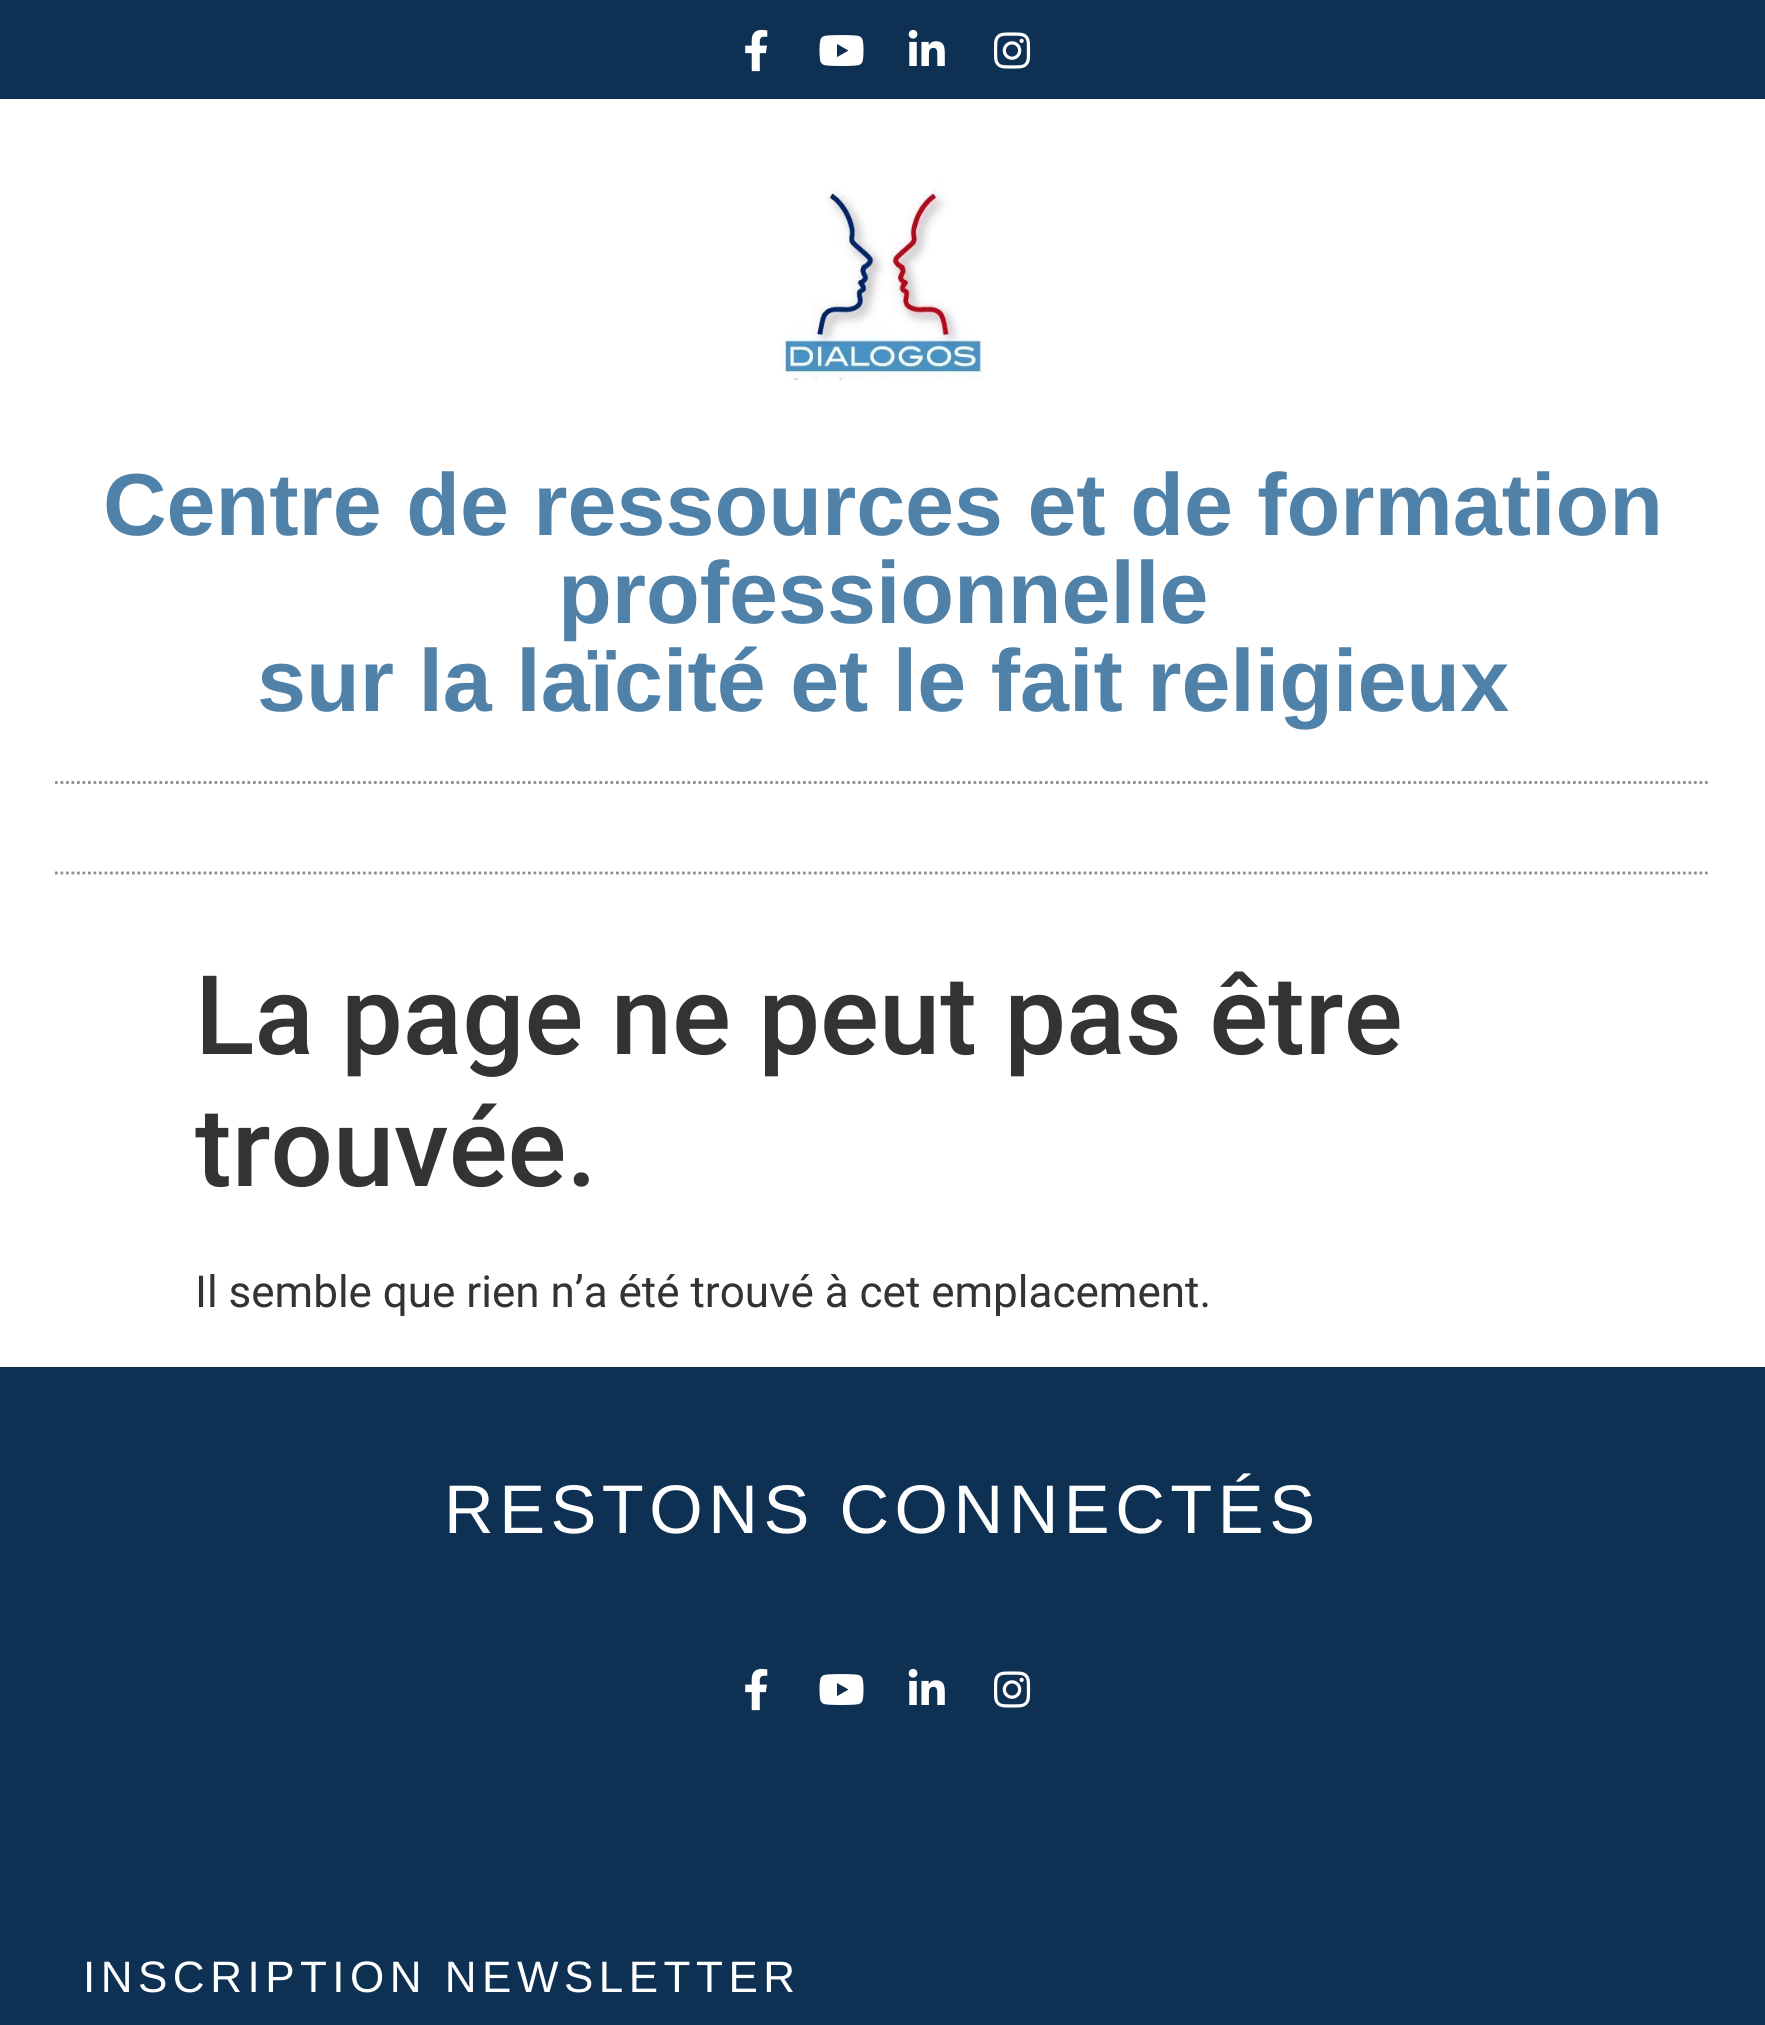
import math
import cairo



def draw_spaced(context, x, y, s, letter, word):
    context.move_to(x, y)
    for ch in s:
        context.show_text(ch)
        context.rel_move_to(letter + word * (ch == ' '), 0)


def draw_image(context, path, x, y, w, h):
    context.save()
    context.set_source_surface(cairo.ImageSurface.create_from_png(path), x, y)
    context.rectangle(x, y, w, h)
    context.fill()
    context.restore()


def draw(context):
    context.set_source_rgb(1, 1, 1)
    context.paint()
    context.set_source_rgb(14 / 255, 49 / 255, 83 / 255)
    context.rectangle(0, 0, 1765, 99)
    context.fill()
    draw_image(context, "images/1.png", 745, 29, 23, 43)
    draw_image(context, "images/2.png", 819, 35, 45, 31)
    draw_image(context, "images/3.png", 908, 29, 37, 37)
    draw_image(context, "images/4.png", 993, 32, 38, 37)
    draw_image(context, "images/5.png", 779, 182, 205, 198)
    context.new_path()
    context.move_to(55, 782.5)
    context.line_to(1710.5, 782.5)
    context.set_source_rgb(142 / 255, 142 / 255, 142 / 255)
    context.set_line_width(2.8)
    context.set_dash([2.75, 2.75])
    context.stroke()
    context.new_path()
    context.move_to(55, 873)
    context.line_to(1710.5, 873)
    context.stroke()
    context.set_source_rgb(14 / 255, 49 / 255, 83 / 255)
    context.rectangle(0, 1367, 1765, 658)
    context.fill()
    draw_image(context, "images/1.png", 745, 1668, 23, 43)
    draw_image(context, "images/2.png", 819, 1674, 45, 31)
    draw_image(context, "images/3.png", 908, 1668, 37, 37)
    draw_image(context, "images/4.png", 993, 1671, 38, 37)
    context.select_font_face("Liberation Sans", cairo.FontSlant.NORMAL, cairo.FontWeight.BOLD)
    context.set_font_size(88)
    context.set_source_rgb(80 / 255, 130 / 255, 169 / 255)
    context.move_to(103, 535)
    context.show_text("Centre de ressources et de formation")
    context.move_to(558, 623)
    context.show_text("professionnelle")
    context.move_to(257, 711)
    context.show_text("sur la laïcité et le fait religieux")
    context.select_font_face("Roboto Medium")
    context.set_font_size(110)
    context.set_source_rgb(51 / 255, 51 / 255, 51 / 255)
    context.move_to(195, 1054)
    context.show_text("La page ne peut pas être")
    context.move_to(195, 1186)
    context.show_text("trouvée.")
    context.select_font_face("Roboto")
    context.set_font_size(44)
    context.move_to(195, 1307)
    context.show_text("Il semble que rien n’a été trouvé à cet emplacement.")
    context.select_font_face("Liberation Sans")
    context.set_font_size(68.75)
    context.set_source_rgb(1, 1, 1)
    draw_spaced(context, 444, 1533, "RESTONS CONNECTÉS", 5.5, 0)
    context.set_font_size(44)
    draw_spaced(context, 83, 1992, "INSCRIPTION NEWSLETTER", 5.5, 0)


surface = cairo.ImageSurface(cairo.Format.RGB24, 1765, 2025)
context = cairo.Context(surface)
options = cairo.FontOptions()
options.set_hint_metrics(cairo.HintMetrics.OFF)
options.set_hint_style(cairo.HintStyle.NONE)
context.set_font_options(options)
context.set_miter_limit(4)
draw(context)
surface.write_to_png("out.png")
